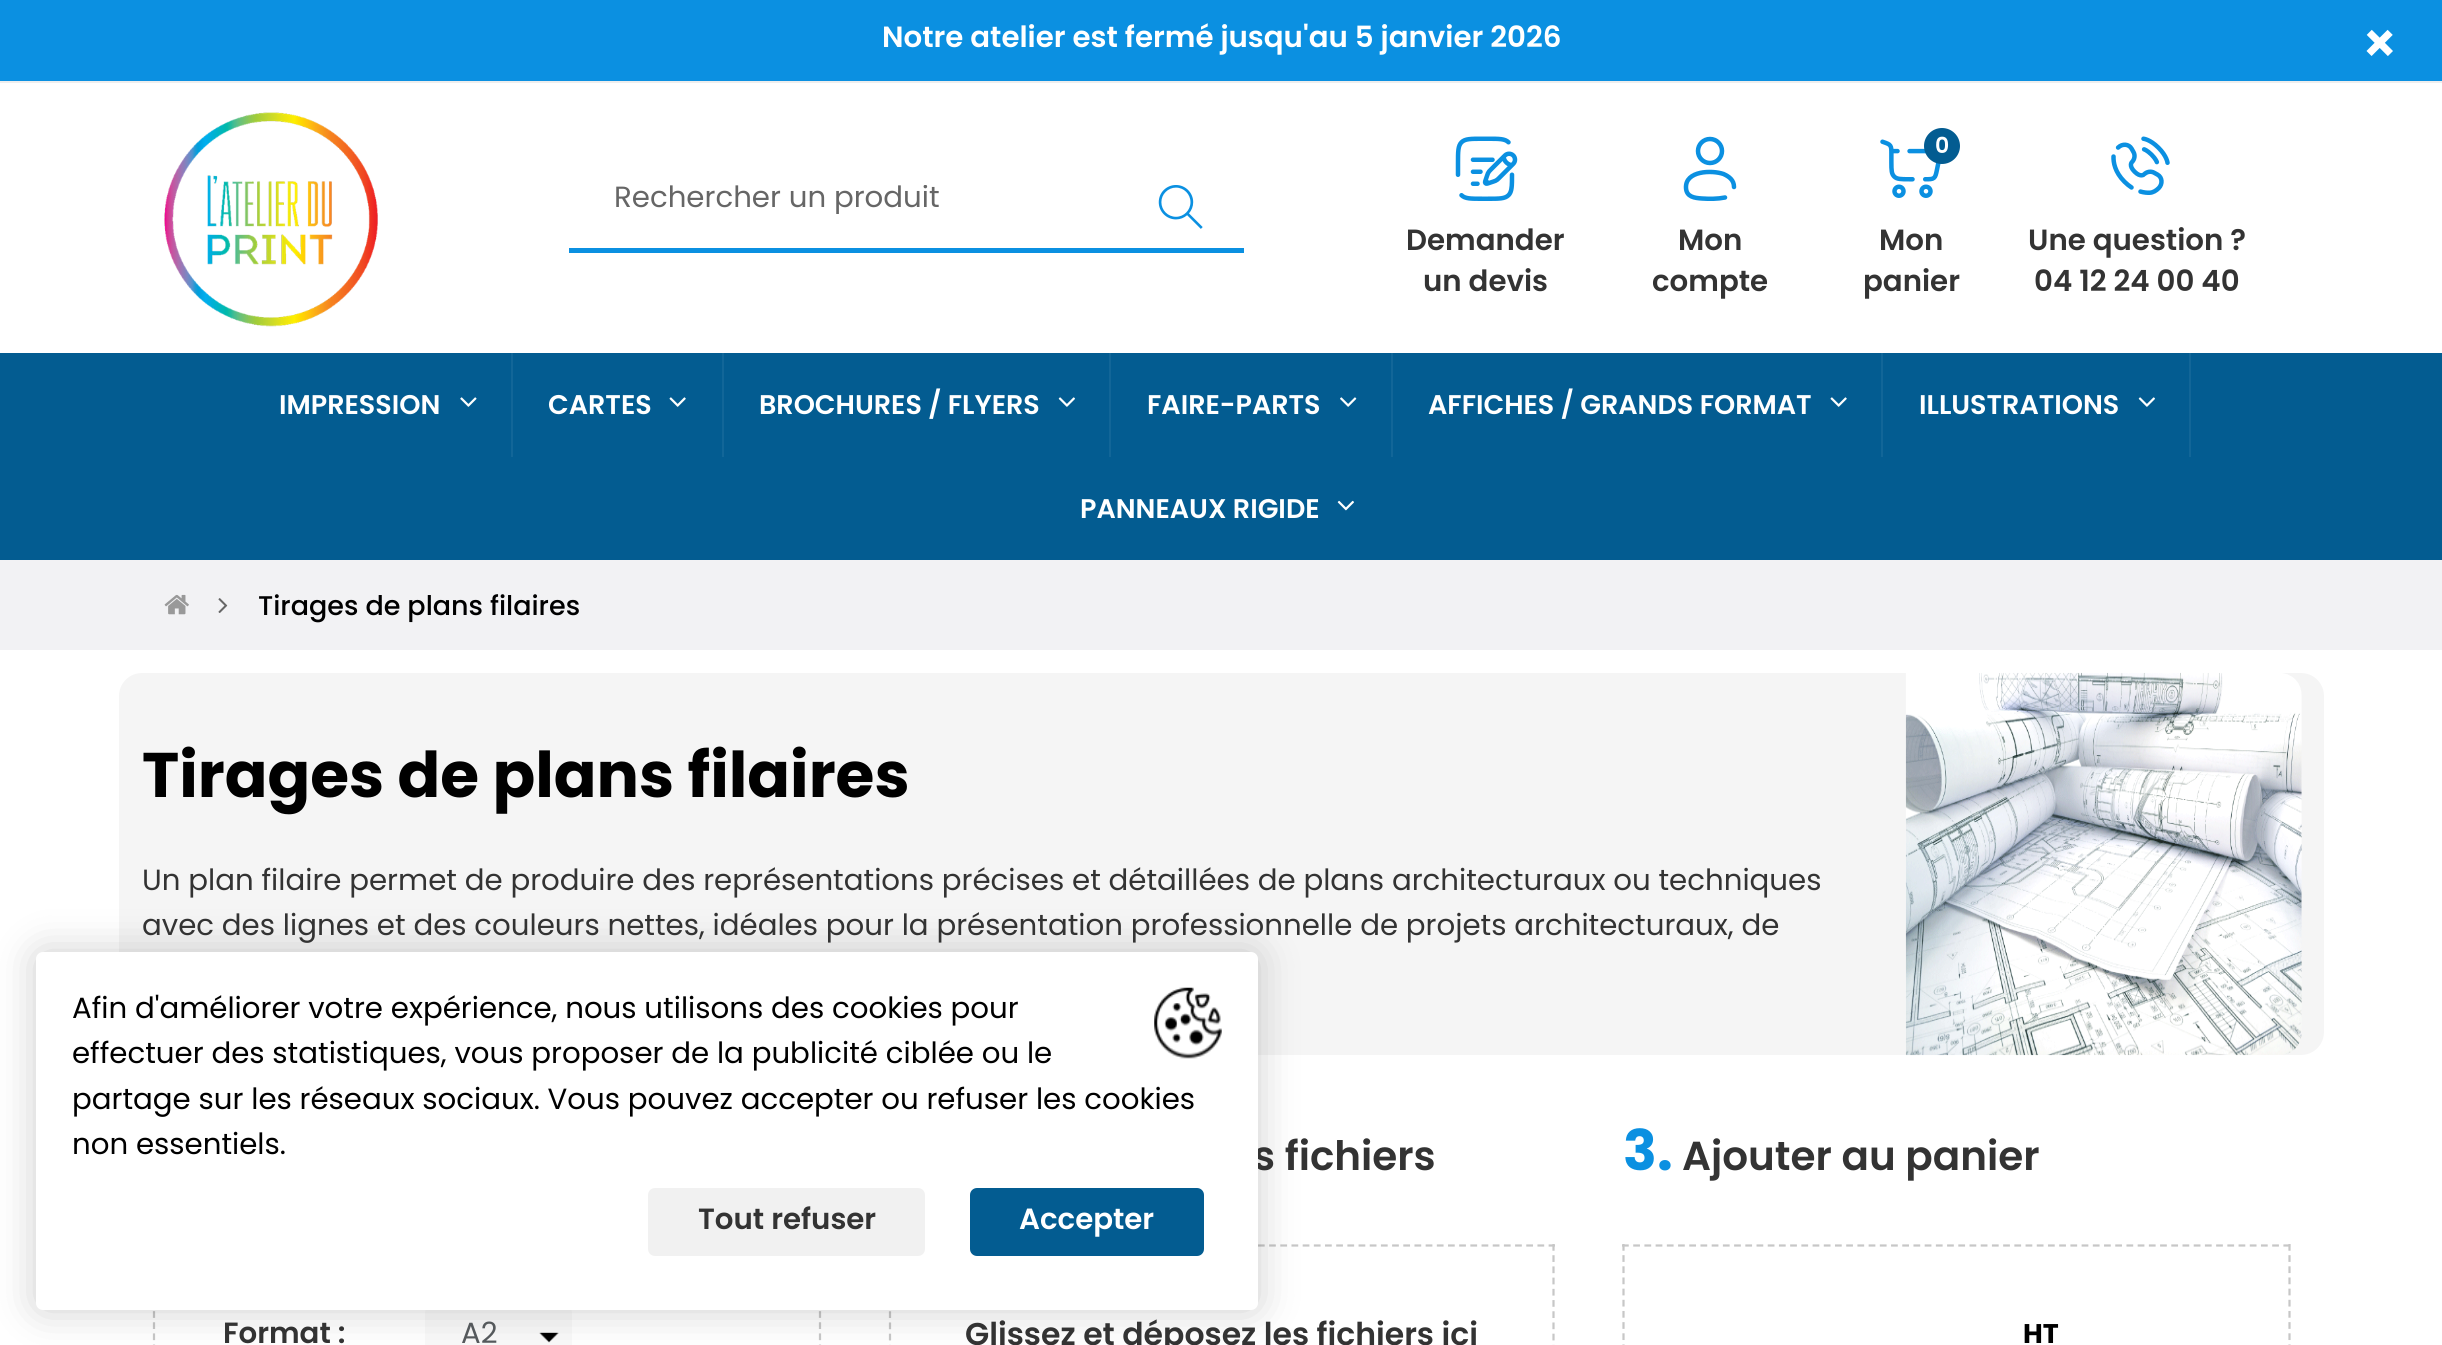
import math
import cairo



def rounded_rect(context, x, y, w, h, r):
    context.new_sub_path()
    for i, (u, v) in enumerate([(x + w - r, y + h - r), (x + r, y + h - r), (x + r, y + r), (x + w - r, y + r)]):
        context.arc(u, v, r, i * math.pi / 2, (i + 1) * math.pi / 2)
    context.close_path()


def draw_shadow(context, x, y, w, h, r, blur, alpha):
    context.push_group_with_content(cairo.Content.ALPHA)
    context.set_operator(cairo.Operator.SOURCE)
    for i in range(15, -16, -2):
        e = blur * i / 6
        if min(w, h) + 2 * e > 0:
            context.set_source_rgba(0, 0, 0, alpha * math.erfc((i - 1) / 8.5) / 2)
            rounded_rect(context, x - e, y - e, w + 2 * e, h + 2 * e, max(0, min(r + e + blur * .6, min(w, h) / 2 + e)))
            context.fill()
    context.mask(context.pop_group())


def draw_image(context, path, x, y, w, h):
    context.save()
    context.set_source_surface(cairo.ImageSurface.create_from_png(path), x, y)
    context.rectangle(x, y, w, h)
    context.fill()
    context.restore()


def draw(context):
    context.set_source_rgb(1, 1, 1)
    context.paint()
    context.set_source_rgb(11 / 255, 144 / 255, 225 / 255)
    context.rectangle(0, 0, 2442, 81)
    context.fill()
    context.set_source_rgb(238 / 255, 238 / 255, 238 / 255)
    context.rectangle(0, 81, 2442, 2)
    context.fill()
    draw_image(context, "images/1.png", 164, 112, 214, 215)
    context.set_source_rgb(11 / 255, 144 / 255, 225 / 255)
    context.rectangle(569, 248, 675, 5)
    context.fill()
    draw_image(context, "images/2.png", 1158, 185, 45, 44)
    draw_image(context, "images/3.png", 1880, 139, 61, 59)
    context.set_source_rgb(3 / 255, 92 / 255, 145 / 255)
    context.arc(1942, 146, 18, 0, 2 * math.pi)
    context.fill()
    draw_image(context, "images/4.png", 1455, 136, 63, 65)
    context.arc(1710, 151, 12, 0, 2 * math.pi)
    context.set_source_rgb(11 / 255, 144 / 255, 225 / 255)
    context.set_line_width(4.5)
    context.stroke()
    context.new_path()
    context.move_to(1734, 187)
    context.curve_to(1734, 180, 1729, 176.5, 1723.5, 174)
    context.curve_to(1712, 170, 1685, 170.5, 1686, 188)
    context.curve_to(1686.5, 197, 1694.5, 198, 1702, 198.5)
    context.curve_to(1709.5, 199, 1717.5, 199, 1725, 197.5)
    context.set_line_cap(cairo.LineCap.ROUND)
    context.stroke()
    draw_image(context, "images/5.png", 2111, 136, 59, 59)
    context.set_source_rgb(3 / 255, 92 / 255, 145 / 255)
    context.rectangle(0, 353, 2442, 207)
    context.fill()
    context.set_source_rgb(18 / 255, 102 / 255, 152 / 255)
    context.rectangle(511, 353, 2, 104)
    context.fill()
    draw_image(context, "images/6.png", 460, 397, 17, 10)
    context.rectangle(722, 353, 2, 104)
    context.fill()
    draw_image(context, "images/7.png", 669, 397, 17, 10)
    context.rectangle(1109, 353, 2, 104)
    context.fill()
    draw_image(context, "images/8.png", 1058, 397, 17, 10)
    context.rectangle(1391, 353, 2, 104)
    context.fill()
    draw_image(context, "images/9.png", 1340, 397, 17, 10)
    context.rectangle(1881, 353, 2, 104)
    context.fill()
    draw_image(context, "images/7.png", 1830, 397, 17, 10)
    context.rectangle(2189, 353, 2, 104)
    context.fill()
    draw_image(context, "images/8.png", 2138, 397, 17, 10)
    draw_image(context, "images/10.png", 1337, 500, 17, 11)
    context.set_source_rgb(242 / 255, 242 / 255, 244 / 255)
    context.rectangle(0, 560, 2442, 90)
    context.fill()
    draw_image(context, "images/11.png", 164, 594, 25, 21)
    draw_image(context, "images/12.png", 218, 598, 10, 15)
    context.set_source_rgb(245 / 255, 245 / 255, 245 / 255)
    rounded_rect(context, 119, 673, 2205, 382, 23)
    context.fill()
    draw_image(context, "images/13.png", 1905, 672, 397, 384)
    context.new_path()
    context.move_to(820, 1222)
    context.line_to(820, 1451)
    context.set_source_rgb(199 / 255, 199 / 255, 199 / 255)
    context.set_line_width(2.2)
    context.set_line_cap(cairo.LineCap.BUTT)
    context.set_dash([6.75, 4.39])
    context.stroke()
    context.new_path()
    context.move_to(154, 1222)
    context.line_to(154, 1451)
    context.stroke()
    context.set_source_rgb(249 / 255, 249 / 255, 249 / 255)
    rounded_rect(context, 425, 1292, 147, 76, 23)
    context.fill()
    draw_image(context, "images/14.png", 539, 1332, 20, 11)
    context.new_path()
    context.move_to(889, 1245.5)
    context.line_to(1555, 1245.5)
    context.set_source_rgb(199 / 255, 199 / 255, 199 / 255)
    context.set_dash([6.75, 4.43])
    context.stroke()
    context.new_path()
    context.move_to(1553.5, 1244)
    context.line_to(1553.5, 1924)
    context.set_dash([6.75, 4.46])
    context.stroke()
    context.new_path()
    context.move_to(890, 1244)
    context.line_to(890, 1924)
    context.stroke()
    context.new_path()
    context.move_to(1622, 1245.5)
    context.line_to(2290.5, 1245.5)
    context.stroke()
    context.new_path()
    context.move_to(2289.5, 1244)
    context.line_to(2289.5, 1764)
    context.set_dash([6.75, 4.41])
    context.stroke()
    context.new_path()
    context.move_to(1623.5, 1244)
    context.line_to(1623.5, 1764)
    context.stroke()
    context.set_source_rgb(0, 0, 0)
    draw_shadow(context, 36, 952, 1222, 358, 7, 20, 0.2)
    context.select_font_face("Poppins SemiBold")
    context.set_font_size(29.25)
    context.set_source_rgb(1, 1, 1)
    context.move_to(882, 47)
    context.show_text("Notre atelier est fermé jusqu'au 5 janvier 2026")
    context.set_font_size(56)
    context.move_to(2361, 63)
    context.show_text("×")
    context.save()
    context.rectangle(614, 185, 484, 29)
    context.clip()
    context.select_font_face("Poppins")
    context.set_font_size(29.25)
    context.set_source_rgb(102 / 255, 102 / 255, 102 / 255)
    context.move_to(614, 207)
    context.show_text("Rechercher un produit")
    context.restore()
    context.set_font_size(22)
    context.move_to(1935, 153)
    context.show_text("0")
    context.set_font_size(29.25)
    context.set_source_rgb(51 / 255, 51 / 255, 51 / 255)
    context.move_to(1879, 250)
    context.show_text("Mon")
    context.move_to(1863, 291)
    context.show_text("panier")
    context.move_to(1406, 250)
    context.show_text("Demander")
    context.move_to(1423, 291)
    context.show_text("un devis")
    context.move_to(1678, 250)
    context.show_text("Mon")
    context.move_to(1652, 291)
    context.show_text("compte")
    context.move_to(2028, 250)
    context.show_text("Une question ?")
    context.move_to(2034, 291)
    context.show_text("04 12 24 00 40")
    context.set_font_size(27)
    context.set_source_rgb(1, 1, 1)
    context.move_to(279, 414)
    context.show_text("IMPRESSION")
    context.move_to(548, 414)
    context.show_text("CARTES")
    context.move_to(759, 414)
    context.show_text("BROCHURES / FLYERS")
    context.move_to(1147, 414)
    context.show_text("FAIRE-PARTS")
    context.move_to(1428, 414)
    context.show_text("AFFICHES / GRANDS FORMAT")
    context.move_to(1919, 414)
    context.show_text("ILLUSTRATIONS")
    context.move_to(1080, 518)
    context.show_text("PANNEAUX RIGIDE")
    context.select_font_face("Poppins Medium")
    context.set_source_rgb(0, 0, 0)
    context.move_to(258, 615)
    context.show_text("Tirages de plans filaires")
    context.select_font_face("Poppins", cairo.FontSlant.NORMAL, cairo.FontWeight.BOLD)
    context.set_font_size(63)
    context.move_to(142, 797)
    context.show_text("Tirages de plans filaires")
    context.select_font_face("Poppins")
    context.set_font_size(29.25)
    context.set_source_rgb(51 / 255, 51 / 255, 51 / 255)
    context.move_to(142, 890)
    context.show_text("Un plan filaire permet de produire des représentations précises et détaillées de plans architecturaux ou techniques")
    context.move_to(142, 935)
    context.show_text("avec des lignes et des couleurs nettes, idéales pour la présentation professionnelle de projets architecturaux, de")
    context.select_font_face("Poppins SemiBold")
    context.move_to(223, 1343)
    context.show_text("Format :")
    context.select_font_face("Poppins")
    context.set_source_rgb(85 / 255, 89 / 255, 92 / 255)
    context.move_to(461, 1343)
    context.show_text("A2")
    context.select_font_face("Poppins SemiBold")
    context.set_font_size(40.5)
    context.set_source_rgb(51 / 255, 51 / 255, 51 / 255)
    context.move_to(1253, 1170)
    context.show_text("s fichiers")
    context.set_font_size(31.5)
    context.move_to(965, 1345)
    context.show_text("Glissez et déposez les fichiers ici")
    context.select_font_face("Poppins", cairo.FontSlant.NORMAL, cairo.FontWeight.BOLD)
    context.set_font_size(56)
    context.set_source_rgb(11 / 255, 144 / 255, 225 / 255)
    context.move_to(1623, 1170)
    context.show_text("3.")
    context.select_font_face("Poppins SemiBold")
    context.set_font_size(40.5)
    context.set_source_rgb(51 / 255, 51 / 255, 51 / 255)
    context.move_to(1682, 1170)
    context.show_text("Ajouter au panier")
    context.select_font_face("Poppins", cairo.FontSlant.NORMAL, cairo.FontWeight.BOLD)
    context.set_font_size(27)
    context.set_source_rgb(0, 0, 0)
    context.move_to(2023, 1343)
    context.show_text("HT")
    context.set_source_rgb(1, 1, 1)
    rounded_rect(context, 36, 952, 1222, 358, 7)
    context.fill()
    draw_image(context, "images/15.png", 1154, 987, 68, 72)
    context.select_font_face("Poppins")
    context.set_font_size(29.25)
    context.set_source_rgb(0, 0, 0)
    context.move_to(72, 1018)
    context.show_text("Afin d'améliorer votre expérience, nous utilisons des cookies pour")
    context.move_to(72, 1063)
    context.show_text("effectuer des statistiques, vous proposer de la publicité ciblée ou le")
    context.move_to(72, 1109)
    context.show_text("partage sur les réseaux sociaux. Vous pouvez accepter ou refuser les cookies")
    context.move_to(72, 1154)
    context.show_text("non essentiels.")
    context.set_source_rgb(241 / 255, 241 / 255, 241 / 255)
    rounded_rect(context, 648, 1188, 277, 68, 7)
    context.fill()
    context.select_font_face("Poppins SemiBold")
    context.set_source_rgb(51 / 255, 51 / 255, 51 / 255)
    context.move_to(698, 1229)
    context.show_text("Tout refuser")
    context.set_source_rgb(3 / 255, 92 / 255, 145 / 255)
    rounded_rect(context, 970, 1188, 234, 68, 7)
    context.fill()
    context.set_source_rgb(1, 1, 1)
    context.move_to(1019, 1229)
    context.show_text("Accepter")


surface = cairo.ImageSurface(cairo.Format.RGB24, 2442, 1345)
context = cairo.Context(surface)
options = cairo.FontOptions()
options.set_hint_metrics(cairo.HintMetrics.OFF)
options.set_hint_style(cairo.HintStyle.NONE)
context.set_font_options(options)
context.set_miter_limit(4)
draw(context)
surface.write_to_png("out.png")
